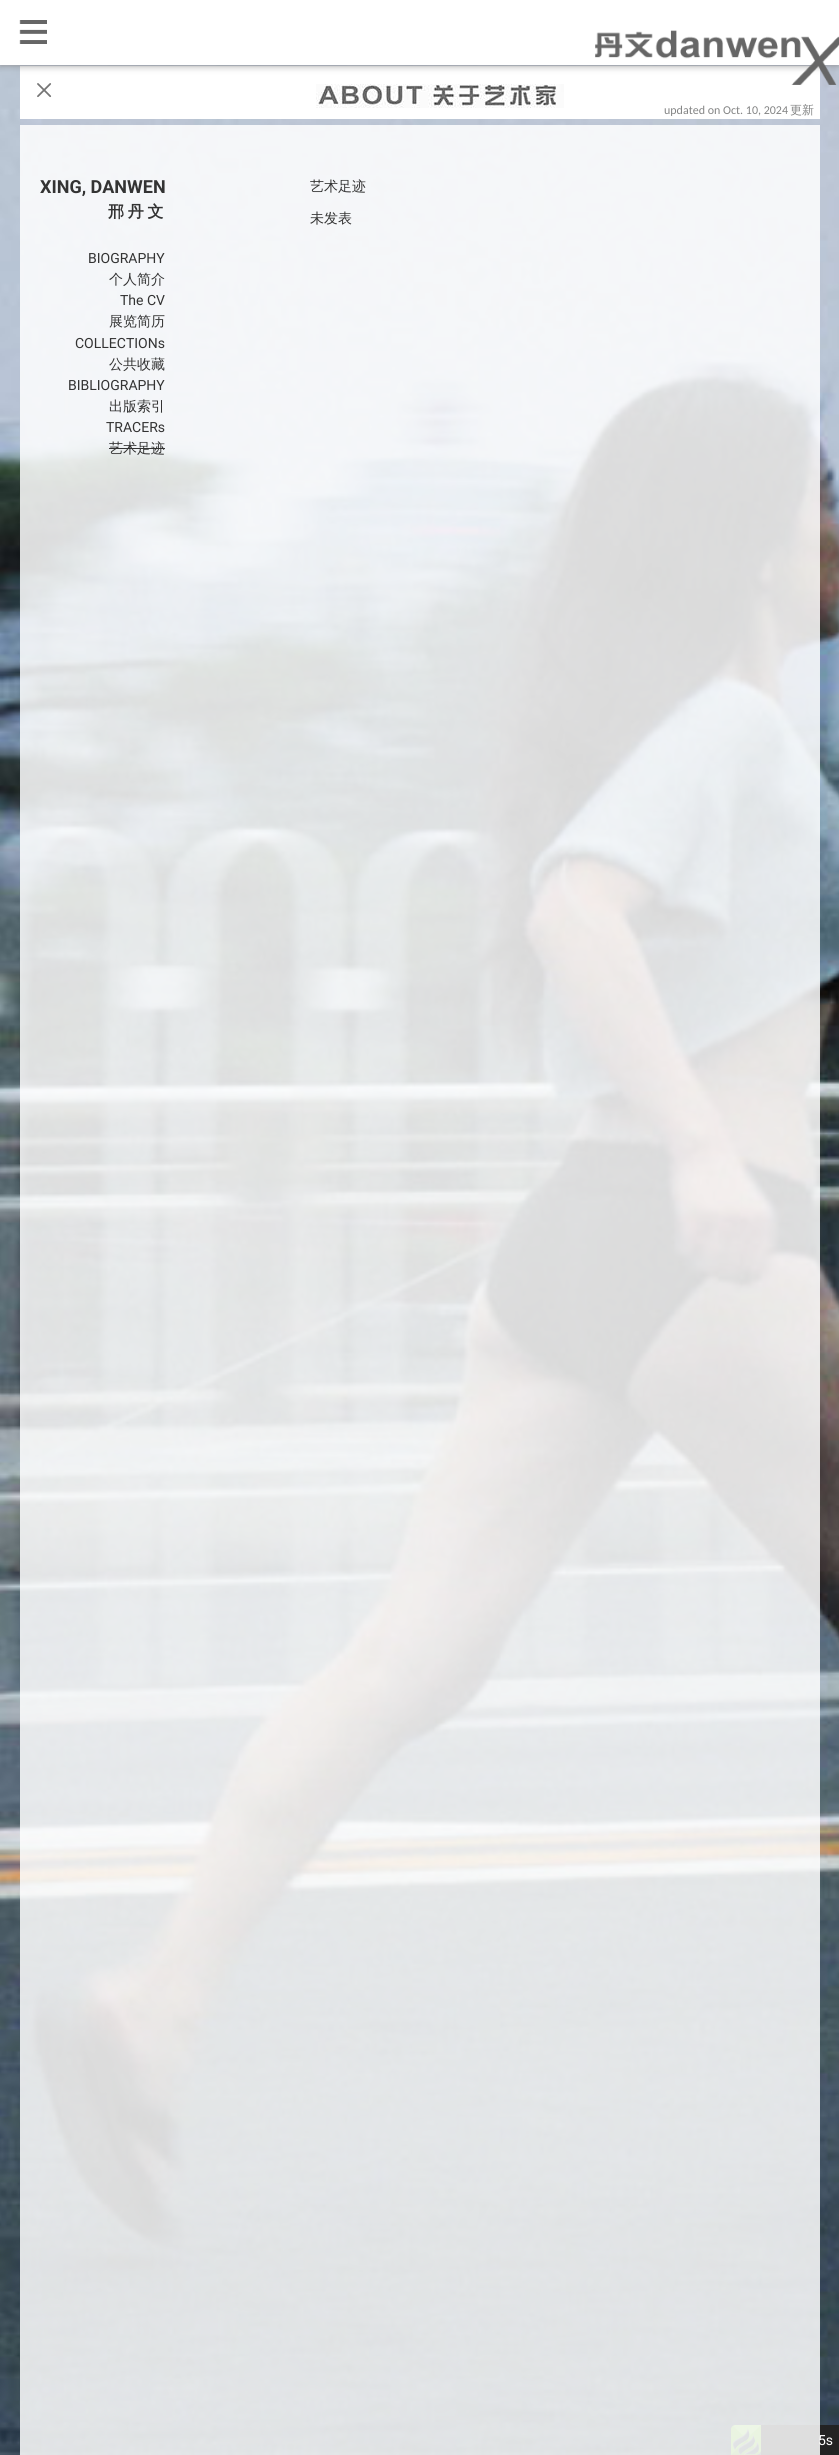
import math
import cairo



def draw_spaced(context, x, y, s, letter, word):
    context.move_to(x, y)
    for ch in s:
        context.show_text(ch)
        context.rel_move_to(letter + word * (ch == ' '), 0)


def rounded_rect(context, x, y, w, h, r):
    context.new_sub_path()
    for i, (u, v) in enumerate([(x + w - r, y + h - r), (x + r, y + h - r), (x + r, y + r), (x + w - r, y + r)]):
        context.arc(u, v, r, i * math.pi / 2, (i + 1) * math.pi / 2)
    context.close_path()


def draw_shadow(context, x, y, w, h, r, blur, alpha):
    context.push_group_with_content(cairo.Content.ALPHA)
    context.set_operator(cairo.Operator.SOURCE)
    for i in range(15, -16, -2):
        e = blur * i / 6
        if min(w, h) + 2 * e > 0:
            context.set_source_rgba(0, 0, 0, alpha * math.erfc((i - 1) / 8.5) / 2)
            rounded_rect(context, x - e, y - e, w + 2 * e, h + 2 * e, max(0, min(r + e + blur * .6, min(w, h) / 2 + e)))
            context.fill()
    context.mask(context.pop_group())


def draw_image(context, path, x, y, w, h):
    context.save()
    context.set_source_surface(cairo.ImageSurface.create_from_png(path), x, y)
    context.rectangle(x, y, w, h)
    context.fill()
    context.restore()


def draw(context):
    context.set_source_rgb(1, 1, 1)
    context.paint()
    draw_image(context, "images/3.png", 0, 65, 839, 2390)
    context.set_source_rgb(1, 1, 1)
    context.rectangle(20, 66, 800, 53)
    context.fill()
    context.set_source_rgb(136 / 255, 136 / 255, 136 / 255)
    draw_shadow(context, 0, 0, 839, 65, 0, 4, 1)
    context.set_source_rgb(1, 1, 1)
    context.rectangle(0, 0, 839, 65)
    context.fill()
    draw_image(context, "images/1.png", 19, 20, 28, 24)
    draw_image(context, "images/2.png", 595, 30, 244, 55)
    draw_image(context, "images/4.png", 37, 83, 15, 15)
    draw_image(context, "images/5.png", 316, 84, 248, 24)
    draw_image(context, "images/6.png", 731, 2425, 30, 30)
    context.set_source_rgb(35 / 255, 35 / 255, 35 / 255)
    context.rectangle(761, 2425, 78, 30)
    context.fill()
    context.select_font_face("Carlito")
    context.set_font_size(12)
    context.set_source_rgb(131 / 255, 132 / 255, 132 / 255)
    context.move_to(664, 114)
    context.show_text("updated on Oct. 10, 2024")
    context.select_font_face("WenQuanYi Zen Hei Medium")
    context.move_to(790, 114)
    context.show_text("更新")
    context.select_font_face("Roboto")
    context.set_font_size(14)
    context.set_source_rgb(1, 1, 1)
    context.move_to(818, 2445)
    context.show_text("5s")
    context.set_source_rgba(1, 1, 1, 0.85)
    context.rectangle(20, 125, 800, 2330)
    context.fill()
    context.select_font_face("WenQuanYi Zen Hei Medium")
    context.set_source_rgb(51 / 255, 51 / 255, 51 / 255)
    context.move_to(310, 223)
    context.show_text("未发表")
    context.move_to(310, 191)
    context.show_text("艺术足迹")
    context.rectangle(109, 448, 56, 1)
    context.fill()
    context.move_to(109, 453)
    context.show_text("艺术足迹")
    context.select_font_face("Roboto")
    context.move_to(106, 432)
    context.show_text("TRACERs")
    context.select_font_face("WenQuanYi Zen Hei Medium")
    context.move_to(109, 411)
    context.show_text("出版索引")
    context.select_font_face("Roboto")
    context.move_to(68, 390)
    context.show_text("BIBLIOGRAPHY")
    context.select_font_face("WenQuanYi Zen Hei Medium")
    context.move_to(109, 369)
    context.show_text("公共收藏")
    context.select_font_face("Roboto")
    context.move_to(75, 348)
    context.show_text("COLLECTIONs")
    context.select_font_face("WenQuanYi Zen Hei Medium")
    context.move_to(109, 326)
    context.show_text("展览简历")
    context.select_font_face("Roboto")
    context.move_to(120, 305)
    context.show_text("The CV")
    context.select_font_face("WenQuanYi Zen Hei Medium")
    context.move_to(109, 284)
    context.show_text("个人简介")
    context.select_font_face("Roboto")
    context.move_to(88, 263)
    context.show_text("BIOGRAPHY")
    context.select_font_face("WenQuanYi Zen Hei", cairo.FontSlant.NORMAL, cairo.FontWeight.BOLD)
    context.set_font_size(16)
    draw_spaced(context, 108, 217, "邢 丹 文", 0, -1)
    context.select_font_face("Roboto", cairo.FontSlant.NORMAL, cairo.FontWeight.BOLD)
    context.set_font_size(18)
    context.move_to(40, 193)
    context.show_text("XING, DANWEN")


surface = cairo.ImageSurface(cairo.Format.RGB24, 839, 2455)
context = cairo.Context(surface)
options = cairo.FontOptions()
options.set_hint_metrics(cairo.HintMetrics.OFF)
options.set_hint_style(cairo.HintStyle.NONE)
context.set_font_options(options)
context.set_miter_limit(4)
draw(context)
surface.write_to_png("out.png")
